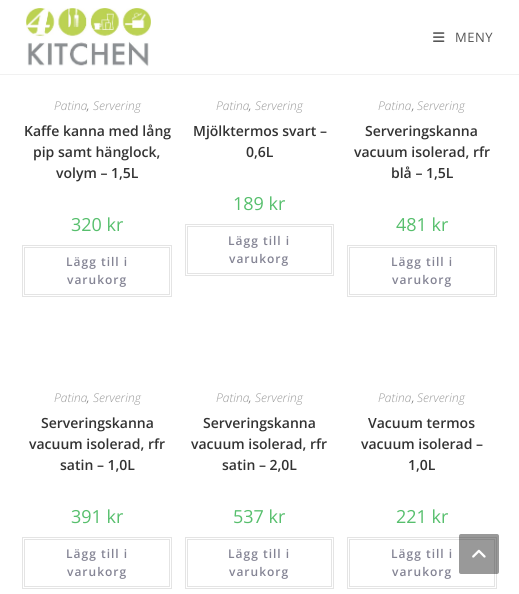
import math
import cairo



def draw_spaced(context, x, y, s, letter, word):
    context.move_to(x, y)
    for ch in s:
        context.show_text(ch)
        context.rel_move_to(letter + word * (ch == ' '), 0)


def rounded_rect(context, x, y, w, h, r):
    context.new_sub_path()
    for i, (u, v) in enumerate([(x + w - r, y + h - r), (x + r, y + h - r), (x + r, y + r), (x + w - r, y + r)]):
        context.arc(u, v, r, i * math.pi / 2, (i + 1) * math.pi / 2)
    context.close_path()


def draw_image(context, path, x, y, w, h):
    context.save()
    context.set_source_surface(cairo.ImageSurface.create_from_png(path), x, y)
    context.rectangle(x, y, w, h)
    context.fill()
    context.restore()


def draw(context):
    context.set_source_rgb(1, 1, 1)
    context.paint()
    context.set_source_rgb(241 / 255, 241 / 255, 241 / 255)
    context.rectangle(0, 74, 519, 1)
    context.fill()
    draw_image(context, "images/1.png", 26, 8, 125, 59)
    draw_image(context, "images/2.png", 433, 32, 12, 10)
    context.rectangle(22.5, 245.5, 149, 51)
    context.set_source_rgb(228 / 255, 228 / 255, 228 / 255)
    context.set_line_width(1)
    context.stroke()
    context.rectangle(24.5, 247.5, 145, 47)
    context.stroke()
    context.rectangle(185.5, 224.5, 148, 51)
    context.stroke()
    context.rectangle(187.5, 226.5, 144, 47)
    context.stroke()
    context.rectangle(347.5, 245.5, 149, 51)
    context.stroke()
    context.rectangle(349.5, 247.5, 145, 47)
    context.stroke()
    context.rectangle(22.5, 537.5, 149, 51)
    context.stroke()
    context.rectangle(24.5, 539.5, 145, 47)
    context.stroke()
    context.rectangle(185.5, 537.5, 148, 51)
    context.stroke()
    context.rectangle(187.5, 539.5, 144, 47)
    context.stroke()
    context.rectangle(347.5, 537.5, 149, 51)
    context.stroke()
    context.rectangle(349.5, 539.5, 145, 47)
    context.stroke()
    context.set_source_rgba(0, 0, 0, 0.4)
    rounded_rect(context, 459, 534, 40, 40, 2)
    context.fill()
    draw_image(context, "images/3.png", 472, 549, 14, 9)
    context.select_font_face("Open Sans")
    context.set_font_size(13)
    context.set_source_rgb(85 / 255, 85 / 255, 85 / 255)
    draw_spaced(context, 455, 42, "MENY", 0.5, 0)
    context.select_font_face("Open Sans Light", cairo.FontSlant.ITALIC)
    context.set_font_size(12)
    context.set_source_rgb(153 / 255, 153 / 255, 153 / 255)
    context.move_to(54, 110)
    context.show_text("Patina")
    context.set_source_rgb(74 / 255, 74 / 255, 74 / 255)
    context.move_to(87, 110)
    context.show_text(",")
    context.set_source_rgb(153 / 255, 153 / 255, 153 / 255)
    context.move_to(93, 110)
    context.show_text("Servering")
    context.select_font_face("Open Sans SemiBold")
    context.set_font_size(14)
    context.set_source_rgb(51 / 255, 51 / 255, 51 / 255)
    context.move_to(24, 136)
    context.show_text("Kaffe kanna med lång")
    context.move_to(33, 157)
    context.show_text("pip samt hänglock,")
    context.move_to(56, 178)
    context.show_text("volym – 1,5L")
    context.select_font_face("Open Sans")
    context.set_font_size(18)
    context.set_source_rgb(87 / 255, 191 / 255, 109 / 255)
    context.move_to(71, 231)
    context.show_text("320 kr")
    context.select_font_face("Open Sans SemiBold")
    context.set_font_size(12)
    context.set_source_rgb(132 / 255, 132 / 255, 148 / 255)
    draw_spaced(context, 66, 266, "Lägg till i", 1, 0)
    draw_spaced(context, 67, 284, "varukorg", 1, 0)
    context.select_font_face("Open Sans Light", cairo.FontSlant.ITALIC)
    context.set_source_rgb(153 / 255, 153 / 255, 153 / 255)
    context.move_to(216, 110)
    context.show_text("Patina")
    context.move_to(255, 110)
    context.show_text("Servering")
    context.set_source_rgb(74 / 255, 74 / 255, 74 / 255)
    context.move_to(249, 110)
    context.show_text(",")
    context.select_font_face("Open Sans SemiBold")
    context.set_font_size(14)
    context.set_source_rgb(51 / 255, 51 / 255, 51 / 255)
    context.move_to(193, 136)
    context.show_text("Mjölktermos svart –")
    context.move_to(246, 157)
    context.show_text("0,6L")
    context.select_font_face("Open Sans")
    context.set_font_size(18)
    context.set_source_rgb(87 / 255, 191 / 255, 109 / 255)
    context.move_to(233, 210)
    context.show_text("189 kr")
    context.select_font_face("Open Sans SemiBold")
    context.set_font_size(12)
    context.set_source_rgb(132 / 255, 132 / 255, 148 / 255)
    draw_spaced(context, 228, 245, "Lägg till i", 1, 0)
    draw_spaced(context, 229, 263, "varukorg", 1, 0)
    context.select_font_face("Open Sans Light", cairo.FontSlant.ITALIC)
    context.set_source_rgb(153 / 255, 153 / 255, 153 / 255)
    context.move_to(378, 110)
    context.show_text("Patina")
    context.set_source_rgb(74 / 255, 74 / 255, 74 / 255)
    context.move_to(412, 110)
    context.show_text(",")
    context.set_source_rgb(153 / 255, 153 / 255, 153 / 255)
    context.move_to(417, 110)
    context.show_text("Servering")
    context.select_font_face("Open Sans SemiBold")
    context.set_font_size(14)
    context.set_source_rgb(51 / 255, 51 / 255, 51 / 255)
    context.move_to(365, 136)
    context.show_text("Serveringskanna")
    context.move_to(354, 157)
    context.show_text("vacuum isolerad, rfr")
    context.move_to(391, 178)
    context.show_text("blå – 1,5L")
    context.select_font_face("Open Sans")
    context.set_font_size(18)
    context.set_source_rgb(87 / 255, 191 / 255, 109 / 255)
    context.move_to(396, 231)
    context.show_text("481 kr")
    context.select_font_face("Open Sans SemiBold")
    context.set_font_size(12)
    context.set_source_rgb(132 / 255, 132 / 255, 148 / 255)
    draw_spaced(context, 391, 266, "Lägg till i", 1, 0)
    draw_spaced(context, 392, 284, "varukorg", 1, 0)
    context.select_font_face("Open Sans Light", cairo.FontSlant.ITALIC)
    context.set_source_rgb(153 / 255, 153 / 255, 153 / 255)
    context.move_to(54, 402)
    context.show_text("Patina")
    context.set_source_rgb(74 / 255, 74 / 255, 74 / 255)
    context.move_to(87, 402)
    context.show_text(",")
    context.set_source_rgb(153 / 255, 153 / 255, 153 / 255)
    context.move_to(93, 402)
    context.show_text("Servering")
    context.select_font_face("Open Sans SemiBold")
    context.set_font_size(14)
    context.set_source_rgb(51 / 255, 51 / 255, 51 / 255)
    context.move_to(41, 428)
    context.show_text("Serveringskanna")
    context.move_to(29, 449)
    context.show_text("vacuum isolerad, rfr")
    context.move_to(60, 470)
    context.show_text("satin – 1,0L")
    context.select_font_face("Open Sans")
    context.set_font_size(18)
    context.set_source_rgb(87 / 255, 191 / 255, 109 / 255)
    context.move_to(71, 523)
    context.show_text("391 kr")
    context.select_font_face("Open Sans SemiBold")
    context.set_font_size(12)
    context.set_source_rgb(132 / 255, 132 / 255, 148 / 255)
    draw_spaced(context, 66, 558, "Lägg till i", 1, 0)
    draw_spaced(context, 67, 576, "varukorg", 1, 0)
    context.select_font_face("Open Sans Light", cairo.FontSlant.ITALIC)
    context.set_source_rgb(153 / 255, 153 / 255, 153 / 255)
    context.move_to(216, 402)
    context.show_text("Patina")
    context.move_to(255, 402)
    context.show_text("Servering")
    context.set_source_rgb(74 / 255, 74 / 255, 74 / 255)
    context.move_to(249, 402)
    context.show_text(",")
    context.select_font_face("Open Sans SemiBold")
    context.set_font_size(14)
    context.set_source_rgb(51 / 255, 51 / 255, 51 / 255)
    context.move_to(203, 428)
    context.show_text("Serveringskanna")
    context.move_to(191, 449)
    context.show_text("vacuum isolerad, rfr")
    context.move_to(222, 470)
    context.show_text("satin – 2,0L")
    context.select_font_face("Open Sans")
    context.set_font_size(18)
    context.set_source_rgb(87 / 255, 191 / 255, 109 / 255)
    context.move_to(233, 523)
    context.show_text("537 kr")
    context.select_font_face("Open Sans SemiBold")
    context.set_font_size(12)
    context.set_source_rgb(132 / 255, 132 / 255, 148 / 255)
    draw_spaced(context, 228, 558, "Lägg till i", 1, 0)
    draw_spaced(context, 229, 576, "varukorg", 1, 0)
    context.select_font_face("Open Sans Light", cairo.FontSlant.ITALIC)
    context.set_source_rgb(153 / 255, 153 / 255, 153 / 255)
    context.move_to(378, 402)
    context.show_text("Patina")
    context.set_source_rgb(74 / 255, 74 / 255, 74 / 255)
    context.move_to(412, 402)
    context.show_text(",")
    context.set_source_rgb(153 / 255, 153 / 255, 153 / 255)
    context.move_to(417, 402)
    context.show_text("Servering")
    context.select_font_face("Open Sans SemiBold")
    context.set_font_size(14)
    context.set_source_rgb(51 / 255, 51 / 255, 51 / 255)
    context.move_to(368, 428)
    context.show_text("Vacuum termos")
    context.move_to(361, 449)
    context.show_text("vacuum isolerad –")
    context.move_to(408, 470)
    context.show_text("1,0L")
    context.select_font_face("Open Sans")
    context.set_font_size(18)
    context.set_source_rgb(87 / 255, 191 / 255, 109 / 255)
    context.move_to(396, 523)
    context.show_text("221 kr")
    context.select_font_face("Open Sans SemiBold")
    context.set_font_size(12)
    context.set_source_rgb(132 / 255, 132 / 255, 148 / 255)
    draw_spaced(context, 391, 558, "Lägg till i", 1, 0)
    draw_spaced(context, 392, 576, "varukorg", 1, 0)


surface = cairo.ImageSurface(cairo.Format.RGB24, 519, 594)
context = cairo.Context(surface)
options = cairo.FontOptions()
options.set_hint_metrics(cairo.HintMetrics.OFF)
options.set_hint_style(cairo.HintStyle.NONE)
context.set_font_options(options)
context.set_miter_limit(4)
draw(context)
surface.write_to_png("out.png")
